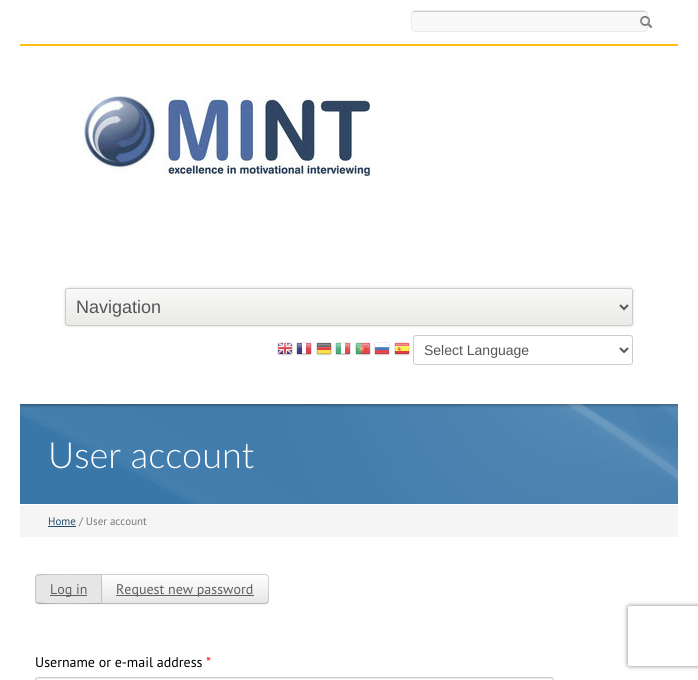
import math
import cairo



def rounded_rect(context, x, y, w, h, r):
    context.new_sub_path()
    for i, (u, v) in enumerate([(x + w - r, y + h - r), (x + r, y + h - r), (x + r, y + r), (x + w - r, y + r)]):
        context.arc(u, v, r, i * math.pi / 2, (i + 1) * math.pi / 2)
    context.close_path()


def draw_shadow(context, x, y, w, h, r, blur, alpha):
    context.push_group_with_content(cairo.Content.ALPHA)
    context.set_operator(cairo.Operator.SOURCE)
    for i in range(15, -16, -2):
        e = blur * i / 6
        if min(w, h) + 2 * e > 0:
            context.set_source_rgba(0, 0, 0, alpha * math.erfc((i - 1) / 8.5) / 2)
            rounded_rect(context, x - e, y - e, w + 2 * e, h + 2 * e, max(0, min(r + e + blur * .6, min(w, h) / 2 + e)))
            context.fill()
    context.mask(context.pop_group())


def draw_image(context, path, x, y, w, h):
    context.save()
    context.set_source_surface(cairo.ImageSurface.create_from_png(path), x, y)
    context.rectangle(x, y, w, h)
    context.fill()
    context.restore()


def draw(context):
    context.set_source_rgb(1, 1, 1)
    context.paint()
    context.set_source_rgb(249 / 255, 249 / 255, 249 / 255)
    rounded_rect(context, 411, 10, 237, 22, 4)
    context.fill()
    context.set_source_rgb(204 / 255, 204 / 255, 204 / 255)
    context.new_path()
    context.move_to(415, 12)
    context.line_to(644, 12)
    context.curve_to(646, 12, 647, 13, 647, 15)
    context.curve_to(647, 13, 646, 11, 644, 11)
    context.line_to(415, 11)
    context.curve_to(413, 11, 412, 13, 412, 15)
    context.curve_to(412, 13, 413, 12, 415, 12)
    context.close_path()
    context.fill()
    rounded_rect(context, 411.5, 10.5, 236, 21, 3.5)
    context.set_source_rgb(236 / 255, 236 / 255, 236 / 255)
    context.set_line_width(1)
    context.stroke()
    draw_image(context, "images/1.png", 640, 16, 12, 13)
    context.set_source_rgb(1, 189 / 255, 22 / 255)
    context.rectangle(20, 44, 658, 2)
    context.fill()
    draw_image(context, "images/2.png", 83, 96, 288, 80)
    context.set_source_rgb(50 / 255, 50 / 255, 50 / 255)
    draw_shadow(context, 65, 288, 568, 38, 3, 1.5, 0.2)
    context.save()
    rounded_rect(context, 65, 288, 568, 38, 3)
    context.clip()
    gradient = cairo.LinearGradient(349, 289, 349, 325)
    gradient.add_color_stop_rgba(0, 249 / 255, 249 / 255, 249 / 255, 1)
    gradient.add_color_stop_rgba(1, 234 / 255, 233 / 255, 230 / 255, 1)
    context.set_source(gradient)
    context.rectangle(65, 289, 568, 36)
    context.fill()
    context.restore()
    rounded_rect(context, 65.5, 288.5, 567, 37, 2.5)
    context.set_source_rgb(204 / 255, 204 / 255, 204 / 255)
    context.stroke()
    context.new_path()
    context.move_to(620, 305)
    context.line_to(624, 309)
    context.line_to(628, 305)
    context.set_source_rgb(85 / 255, 85 / 255, 85 / 255)
    context.set_line_width(2)
    context.stroke()
    draw_image(context, "images/3.png", 277, 342, 16, 14)
    draw_image(context, "images/4.png", 296, 342, 16, 14)
    draw_image(context, "images/5.png", 316, 342, 16, 14)
    draw_image(context, "images/6.png", 335, 342, 16, 14)
    draw_image(context, "images/7.png", 355, 342, 16, 14)
    draw_image(context, "images/8.png", 374, 342, 16, 14)
    draw_image(context, "images/9.png", 394, 342, 16, 14)
    rounded_rect(context, 413.5, 335.5, 219, 29, 2.5)
    context.set_source_rgb(204 / 255, 204 / 255, 204 / 255)
    context.set_line_width(1)
    context.stroke()
    context.new_path()
    context.move_to(620, 348)
    context.line_to(624, 352)
    context.line_to(628, 348)
    context.set_source_rgb(85 / 255, 85 / 255, 85 / 255)
    context.set_line_width(2)
    context.stroke()
    context.set_source_rgb(57 / 255, 119 / 255, 169 / 255)
    context.rectangle(20, 404, 658, 100)
    context.fill()
    draw_image(context, "images/10.png", 20, 404, 658, 100)
    context.set_source_rgb(245 / 255, 245 / 255, 245 / 255)
    context.rectangle(20, 505, 658, 32)
    context.fill()
    context.set_source_rgb(36 / 255, 75 / 255, 105 / 255)
    context.rectangle(48, 526, 28, 1)
    context.fill()
    context.set_source_rgb(0, 0, 0)
    draw_shadow(context, 101, 575, 168, 30, 4, 1, 0.05)
    context.set_source_rgb(245 / 255, 245 / 255, 245 / 255)
    context.new_path()
    context.move_to(101, 574)
    context.line_to(265, 574)
    context.curve_to(267, 574, 269, 576, 269, 578)
    context.line_to(269, 600)
    context.curve_to(269, 602, 267, 604, 265, 604)
    context.line_to(101, 604)
    context.close_path()
    context.fill()
    context.save()
    context.new_path()
    context.move_to(101, 574)
    context.line_to(265, 574)
    context.curve_to(267, 574, 269, 576, 269, 578)
    context.line_to(269, 600)
    context.curve_to(269, 602, 267, 604, 265, 604)
    context.line_to(101, 604)
    context.close_path()
    context.clip()
    gradient = cairo.LinearGradient(185, 575, 185, 603)
    gradient.add_color_stop_rgba(0, 1, 1, 1, 1)
    gradient.add_color_stop_rgba(1, 230 / 255, 230 / 255, 230 / 255, 1)
    context.set_source(gradient)
    context.rectangle(102, 575, 167, 28)
    context.fill()
    context.restore()
    context.set_source_rgba(0, 0, 0, 0.15)
    context.new_path()
    context.move_to(101, 574)
    context.line_to(102, 575)
    context.line_to(265, 575)
    context.line_to(267, 576)
    context.line_to(268, 575)
    context.line_to(265, 574)
    context.close_path()
    context.fill()
    context.new_path()
    context.move_to(269, 600)
    context.line_to(269, 578)
    context.curve_to(269, 577, 268.5, 576, 268, 575)
    context.line_to(267, 576)
    context.curve_to(268, 576, 268, 577, 268, 578)
    context.line_to(268, 600)
    context.curve_to(268, 601, 268, 602, 267, 602)
    context.line_to(268, 603)
    context.curve_to(268.5, 602, 269, 601, 269, 600)
    context.close_path()
    context.fill()
    context.set_source_rgba(0, 0, 0, 0.25)
    context.new_path()
    context.move_to(265, 604)
    context.line_to(268, 603)
    context.line_to(267, 602)
    context.line_to(265, 603)
    context.line_to(102, 603)
    context.line_to(101, 604)
    context.close_path()
    context.fill()
    context.set_source_rgb(0, 0, 0)
    draw_shadow(context, 35, 575, 67, 30, 4, 1, 0.05)
    context.set_source_rgb(230 / 255, 230 / 255, 230 / 255)
    context.new_path()
    context.move_to(39, 574)
    context.line_to(102, 574)
    context.line_to(102, 604)
    context.line_to(39, 604)
    context.curve_to(37, 604, 35, 602, 35, 600)
    context.line_to(35, 578)
    context.curve_to(35, 576, 37, 574, 39, 574)
    context.close_path()
    context.fill()
    context.set_source_rgba(0, 0, 0, 0.15)
    context.new_path()
    context.move_to(39, 574)
    context.line_to(36, 575)
    context.line_to(37, 576)
    context.curve_to(38, 574, 94, 575, 101, 575)
    context.line_to(102, 574)
    context.close_path()
    context.fill()
    context.new_path()
    context.move_to(102, 574)
    context.line_to(101, 575)
    context.line_to(101, 603)
    context.line_to(102, 604)
    context.close_path()
    context.fill()
    context.set_source_rgba(0, 0, 0, 0.25)
    context.new_path()
    context.move_to(102, 604)
    context.line_to(101, 603)
    context.curve_to(94, 603, 38, 604, 37, 602)
    context.line_to(36, 603)
    context.line_to(39, 604)
    context.close_path()
    context.fill()
    context.set_source_rgba(0, 0, 0, 0.15)
    context.new_path()
    context.move_to(35, 578)
    context.line_to(35, 600)
    context.curve_to(35, 601, 35.5, 602, 36, 603)
    context.line_to(37, 602)
    context.curve_to(36, 602, 36, 601, 36, 600)
    context.line_to(36, 578)
    context.curve_to(36, 577, 36, 576, 37, 576)
    context.line_to(36, 575)
    context.curve_to(35.5, 576, 35, 577, 35, 578)
    context.close_path()
    context.fill()
    context.set_source_rgb(95 / 255, 95 / 255, 95 / 255)
    context.rectangle(50, 595, 37, 1)
    context.fill()
    context.rectangle(116, 595, 138, 1)
    context.fill()
    context.set_source_rgb(236 / 255, 236 / 255, 236 / 255)
    context.new_path()
    context.move_to(38, 679)
    context.line_to(551, 679)
    context.curve_to(552, 679, 553, 680, 553, 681)
    context.curve_to(553, 680, 553, 678, 551, 678)
    context.line_to(38, 678)
    context.line_to(36, 679)
    context.line_to(36, 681)
    context.curve_to(36, 680, 37, 679, 38, 679)
    context.close_path()
    context.fill()
    rounded_rect(context, 35.5, 677.5, 518, 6, 2.5)
    context.set_source_rgb(204 / 255, 204 / 255, 204 / 255)
    context.set_line_width(1)
    context.stroke()
    context.save()
    context.set_fill_rule(cairo.FillRule.EVEN_ODD)
    context.new_path()
    context.move_to(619, 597)
    context.line_to(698, 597)
    context.line_to(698, 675)
    context.line_to(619, 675)
    context.close_path()
    context.move_to(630, 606)
    context.line_to(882, 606)
    context.curve_to(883, 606, 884, 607, 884, 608)
    context.line_to(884, 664)
    context.curve_to(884, 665, 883, 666, 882, 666)
    context.line_to(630, 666)
    context.curve_to(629, 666, 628, 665, 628, 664)
    context.line_to(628, 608)
    context.curve_to(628, 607, 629, 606, 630, 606)
    context.close_path()
    context.clip()
    context.set_source_rgb(128 / 255, 128 / 255, 128 / 255)
    draw_shadow(context, 628, 606, 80, 60, 2, 2.5, 1)
    context.restore()
    context.select_font_face("Liberation Sans")
    context.set_font_size(18)
    context.set_source_rgb(85 / 255, 85 / 255, 85 / 255)
    context.move_to(76, 313)
    context.show_text("Navigation")
    context.set_font_size(14)
    context.move_to(424, 355)
    context.show_text("Select Language")
    context.select_font_face("Lato Light")
    context.set_font_size(36)
    context.set_source_rgb(1, 1, 1)
    context.move_to(48, 468)
    context.show_text("User account")
    context.select_font_face("PT Sans")
    context.set_font_size(11)
    context.set_source_rgb(36 / 255, 75 / 255, 105 / 255)
    context.move_to(48, 525)
    context.show_text("Home")
    context.set_source_rgb(119 / 255, 119 / 255, 119 / 255)
    context.move_to(79, 525)
    context.show_text("/ User account")
    context.set_font_size(14)
    context.set_source_rgb(95 / 255, 95 / 255, 95 / 255)
    context.move_to(50, 594)
    context.show_text("Log in")
    context.move_to(116, 594)
    context.show_text("Request new password")
    context.set_source_rgb(0, 0, 0)
    context.move_to(35, 667)
    context.show_text("Username or e-mail address")
    context.set_source_rgb(1, 0, 0)
    context.move_to(206, 667)
    context.show_text("*")


surface = cairo.ImageSurface(cairo.Format.RGB24, 698, 680)
context = cairo.Context(surface)
options = cairo.FontOptions()
options.set_hint_metrics(cairo.HintMetrics.OFF)
options.set_hint_style(cairo.HintStyle.NONE)
context.set_font_options(options)
context.set_miter_limit(4)
draw(context)
surface.write_to_png("out.png")
